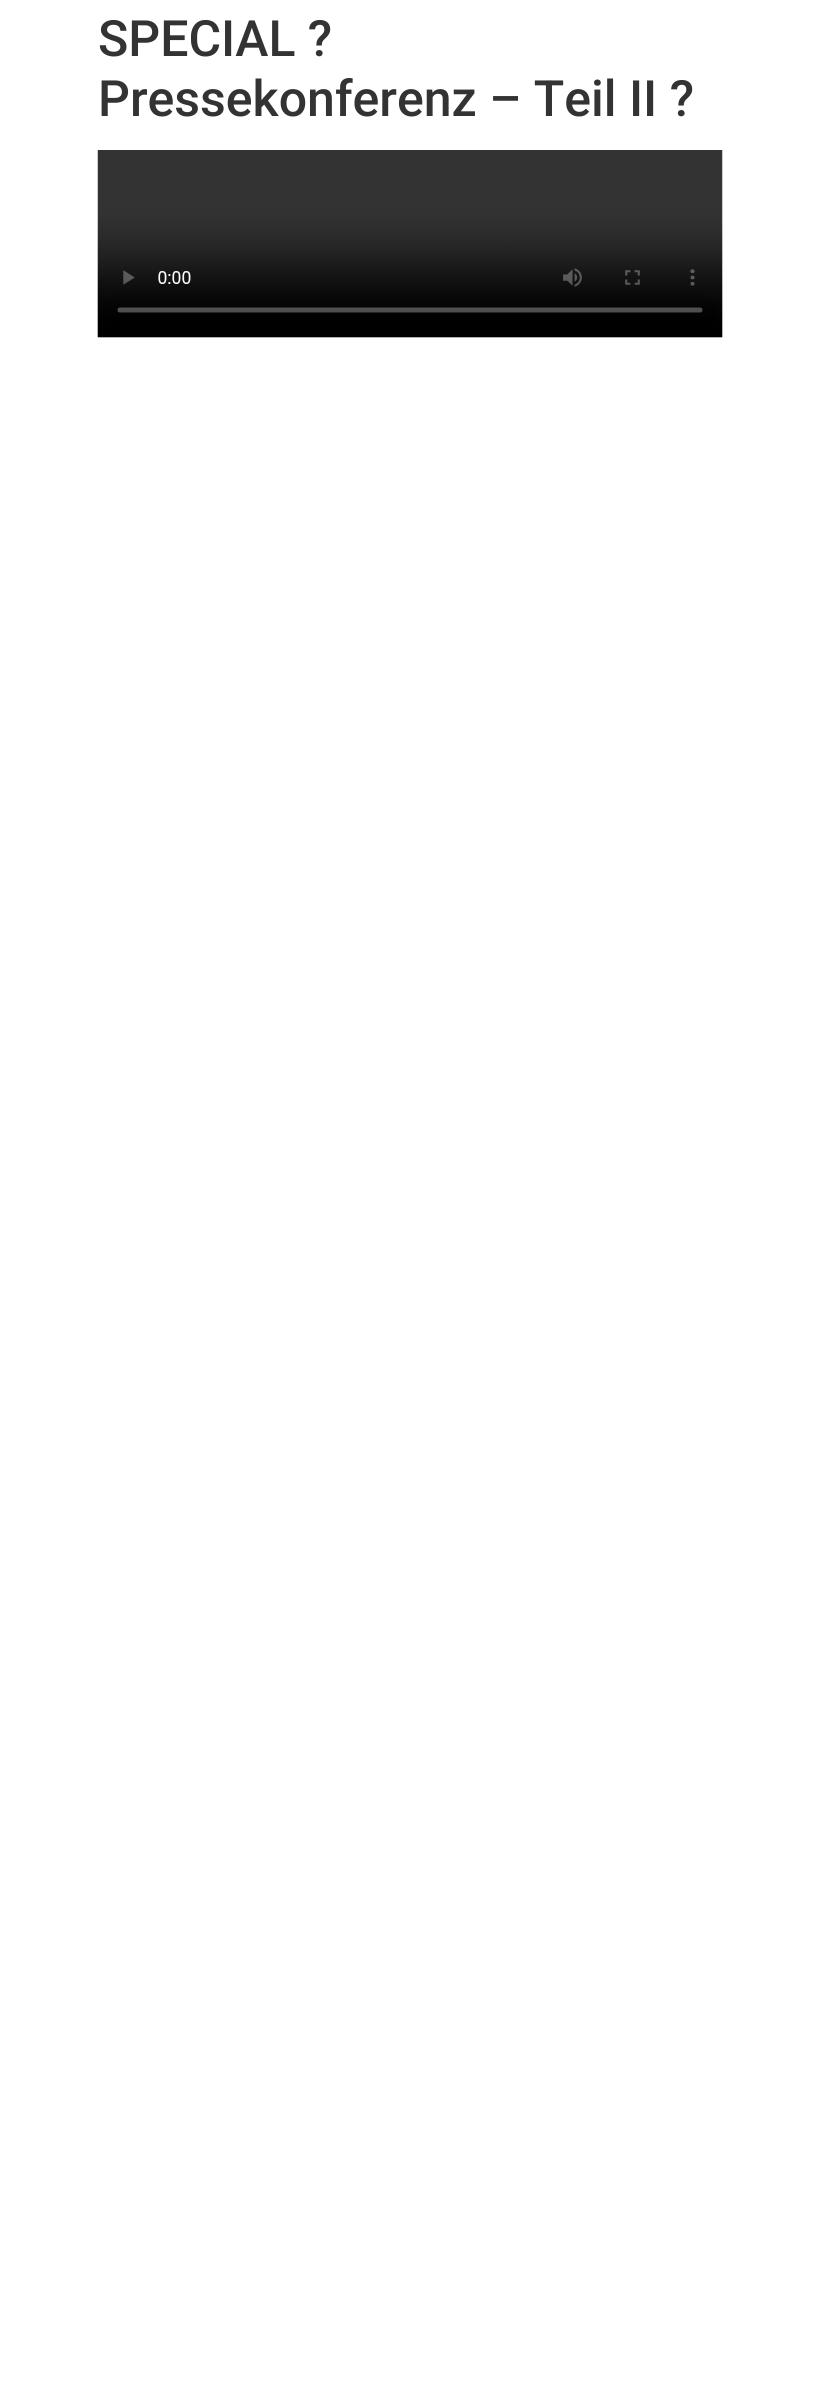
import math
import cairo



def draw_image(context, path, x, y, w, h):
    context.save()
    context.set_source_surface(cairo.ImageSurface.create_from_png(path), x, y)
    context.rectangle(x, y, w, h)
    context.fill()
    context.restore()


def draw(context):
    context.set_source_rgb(1, 1, 1)
    context.paint()
    draw_image(context, "images/1.png", 97, 150, 626, 188)
    context.select_font_face("Roboto Medium")
    context.set_font_size(50)
    context.set_source_rgb(51 / 255, 51 / 255, 51 / 255)
    context.move_to(98, 56)
    context.show_text("SPECIAL ?")
    context.move_to(98, 116)
    context.show_text("Pressekonferenz – Teil II ?")


surface = cairo.ImageSurface(cairo.Format.RGB24, 820, 2391)
context = cairo.Context(surface)
options = cairo.FontOptions()
options.set_hint_metrics(cairo.HintMetrics.OFF)
options.set_hint_style(cairo.HintStyle.NONE)
context.set_font_options(options)
context.set_miter_limit(4)
draw(context)
surface.write_to_png("out.png")
